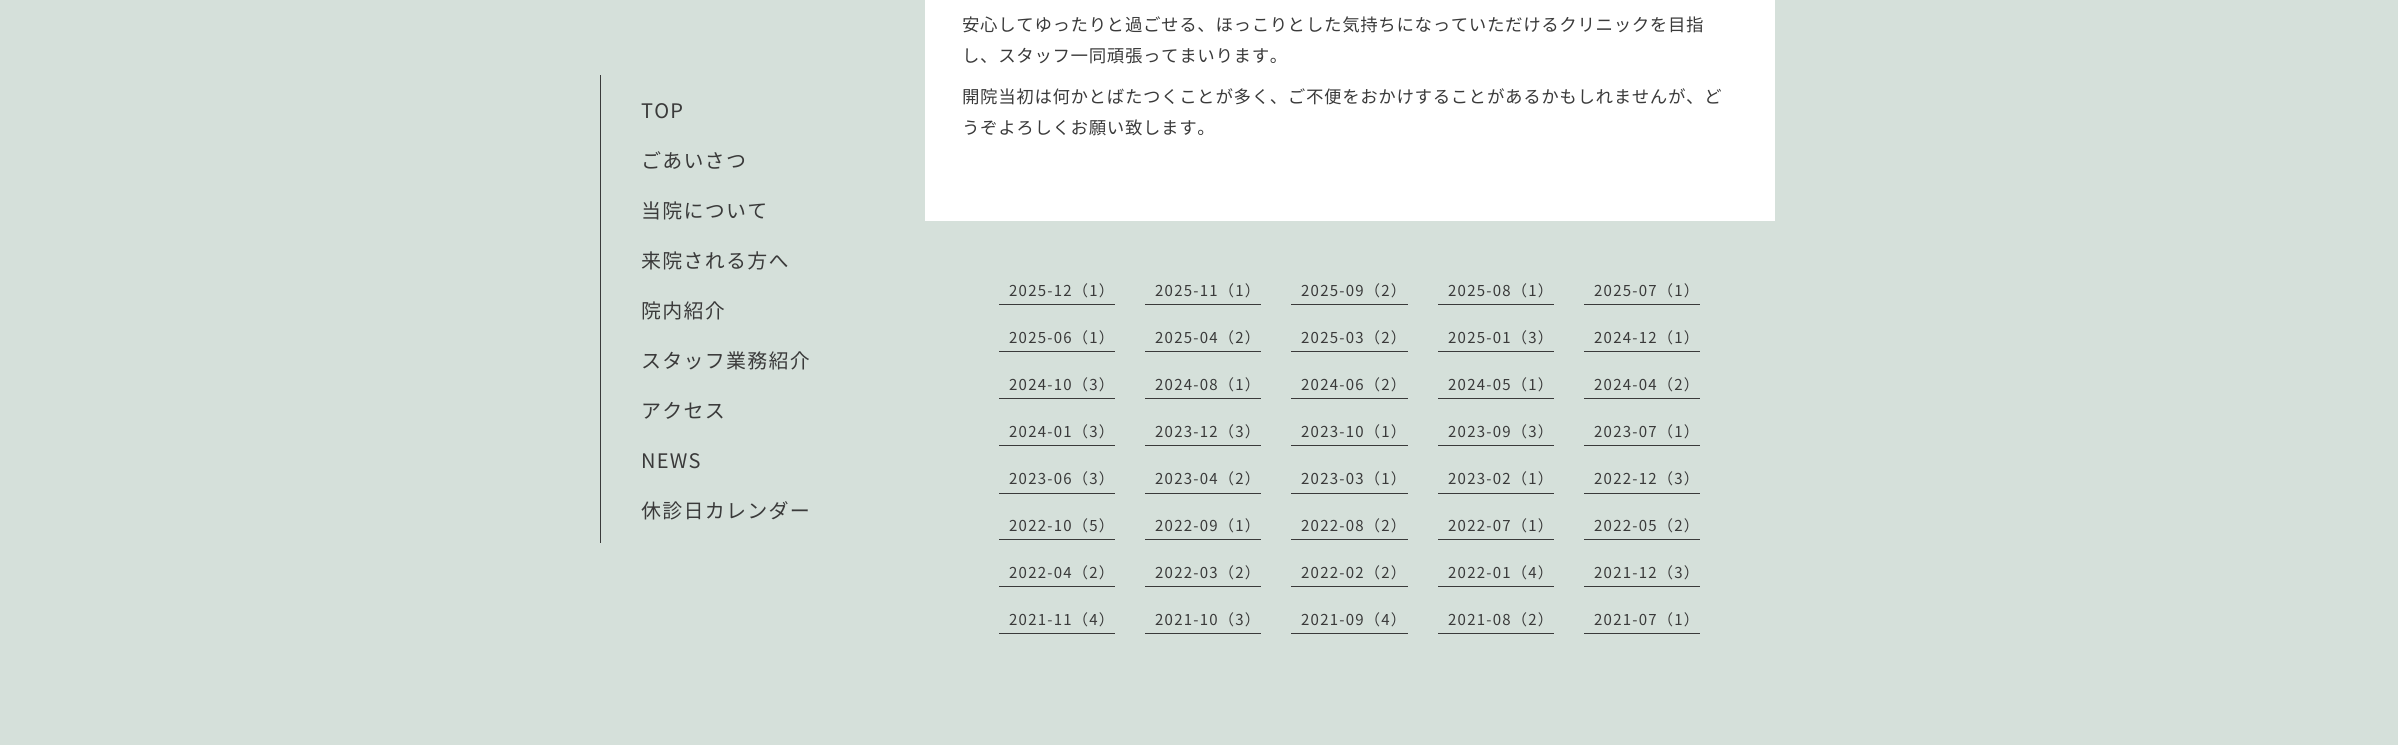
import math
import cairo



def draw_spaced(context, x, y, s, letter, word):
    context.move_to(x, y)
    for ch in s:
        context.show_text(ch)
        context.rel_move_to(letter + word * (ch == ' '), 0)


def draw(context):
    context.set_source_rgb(213 / 255, 224 / 255, 218 / 255)
    context.paint()
    context.set_source_rgb(58 / 255, 58 / 255, 58 / 255)
    context.rectangle(600, 75, 1, 468)
    context.fill()
    context.set_source_rgb(1, 1, 1)
    context.rectangle(925, 0, 850, 221)
    context.fill()
    context.set_source_rgb(58 / 255, 58 / 255, 58 / 255)
    context.rectangle(999, 304, 116, 1)
    context.fill()
    context.rectangle(1145, 304, 116, 1)
    context.fill()
    context.rectangle(1291, 304, 117, 1)
    context.fill()
    context.rectangle(1438, 304, 116, 1)
    context.fill()
    context.rectangle(1584, 304, 116, 1)
    context.fill()
    context.rectangle(999, 351, 116, 1)
    context.fill()
    context.rectangle(1145, 351, 116, 1)
    context.fill()
    context.rectangle(1291, 351, 117, 1)
    context.fill()
    context.rectangle(1438, 351, 116, 1)
    context.fill()
    context.rectangle(1584, 351, 116, 1)
    context.fill()
    context.rectangle(999, 398, 116, 1)
    context.fill()
    context.rectangle(1145, 398, 116, 1)
    context.fill()
    context.rectangle(1291, 398, 117, 1)
    context.fill()
    context.rectangle(1438, 398, 116, 1)
    context.fill()
    context.rectangle(1584, 398, 116, 1)
    context.fill()
    context.rectangle(999, 445, 116, 1)
    context.fill()
    context.rectangle(1145, 445, 116, 1)
    context.fill()
    context.rectangle(1291, 445, 117, 1)
    context.fill()
    context.rectangle(1438, 445, 116, 1)
    context.fill()
    context.rectangle(1584, 445, 116, 1)
    context.fill()
    context.rectangle(999, 493, 116, 1)
    context.fill()
    context.rectangle(1145, 493, 116, 1)
    context.fill()
    context.rectangle(1291, 493, 117, 1)
    context.fill()
    context.rectangle(1438, 493, 116, 1)
    context.fill()
    context.rectangle(1584, 493, 116, 1)
    context.fill()
    context.rectangle(999, 539, 116, 1)
    context.fill()
    context.rectangle(1145, 539, 116, 1)
    context.fill()
    context.rectangle(1291, 539, 117, 1)
    context.fill()
    context.rectangle(1438, 539, 116, 1)
    context.fill()
    context.rectangle(1584, 539, 116, 1)
    context.fill()
    context.rectangle(999, 586, 116, 1)
    context.fill()
    context.rectangle(1145, 586, 116, 1)
    context.fill()
    context.rectangle(1291, 586, 117, 1)
    context.fill()
    context.rectangle(1438, 586, 116, 1)
    context.fill()
    context.rectangle(1584, 586, 116, 1)
    context.fill()
    context.rectangle(999, 633, 116, 1)
    context.fill()
    context.rectangle(1145, 633, 116, 1)
    context.fill()
    context.rectangle(1291, 633, 117, 1)
    context.fill()
    context.rectangle(1438, 633, 116, 1)
    context.fill()
    context.rectangle(1584, 633, 116, 1)
    context.fill()
    context.select_font_face("Noto Sans JP")
    context.set_font_size(20)
    draw_spaced(context, 641, 118, "TOP", 1.25, 0)
    draw_spaced(context, 641, 168, "ごあいさつ", 1.25, 0)
    draw_spaced(context, 641, 218, "当院について", 1.25, 0)
    draw_spaced(context, 641, 268, "来院される方へ", 1.25, 0)
    draw_spaced(context, 641, 318, "院内紹介", 1.25, 0)
    draw_spaced(context, 641, 368, "スタッフ業務紹介", 1.25, 0)
    draw_spaced(context, 641, 418, "アクセス", 1.25, 0)
    draw_spaced(context, 641, 468, "NEWS", 1.25, 0)
    draw_spaced(context, 641, 518, "休診日カレンダー", 1.25, 0)
    context.set_font_size(17.5)
    draw_spaced(context, 962, 31, "安心してゆったりと過ごせる、ほっこりとした気持ちになっていただけるクリニックを目指", 0.6, 0)
    draw_spaced(context, 962, 62, "し、スタッフ一同頑張ってまいります。", 0.6, 0)
    draw_spaced(context, 962, 103, "開院当初は何かとばたつくことが多く、ご不便をおかけすることがあるかもしれませんが、ど", 0.6, 0)
    draw_spaced(context, 962, 134, "うぞよろしくお願い致します。", 0.6, 0)
    context.set_font_size(15)
    draw_spaced(context, 1009, 296, "2025-12（1）", 1.25, 0)
    draw_spaced(context, 1155, 296, "2025-11（1）", 1.25, 0)
    draw_spaced(context, 1301, 296, "2025-09（2）", 1.25, 0)
    draw_spaced(context, 1448, 296, "2025-08（1）", 1.25, 0)
    draw_spaced(context, 1594, 296, "2025-07（1）", 1.25, 0)
    draw_spaced(context, 1009, 343, "2025-06（1）", 1.25, 0)
    draw_spaced(context, 1155, 343, "2025-04（2）", 1.25, 0)
    draw_spaced(context, 1301, 343, "2025-03（2）", 1.25, 0)
    draw_spaced(context, 1448, 343, "2025-01（3）", 1.25, 0)
    draw_spaced(context, 1594, 343, "2024-12（1）", 1.25, 0)
    draw_spaced(context, 1009, 390, "2024-10（3）", 1.25, 0)
    draw_spaced(context, 1155, 390, "2024-08（1）", 1.25, 0)
    draw_spaced(context, 1301, 390, "2024-06（2）", 1.25, 0)
    draw_spaced(context, 1448, 390, "2024-05（1）", 1.25, 0)
    draw_spaced(context, 1594, 390, "2024-04（2）", 1.25, 0)
    draw_spaced(context, 1009, 437, "2024-01（3）", 1.25, 0)
    draw_spaced(context, 1155, 437, "2023-12（3）", 1.25, 0)
    draw_spaced(context, 1301, 437, "2023-10（1）", 1.25, 0)
    draw_spaced(context, 1448, 437, "2023-09（3）", 1.25, 0)
    draw_spaced(context, 1594, 437, "2023-07（1）", 1.25, 0)
    draw_spaced(context, 1009, 484, "2023-06（3）", 1.25, 0)
    draw_spaced(context, 1155, 484, "2023-04（2）", 1.25, 0)
    draw_spaced(context, 1301, 484, "2023-03（1）", 1.25, 0)
    draw_spaced(context, 1448, 484, "2023-02（1）", 1.25, 0)
    draw_spaced(context, 1594, 484, "2022-12（3）", 1.25, 0)
    draw_spaced(context, 1009, 531, "2022-10（5）", 1.25, 0)
    draw_spaced(context, 1155, 531, "2022-09（1）", 1.25, 0)
    draw_spaced(context, 1301, 531, "2022-08（2）", 1.25, 0)
    draw_spaced(context, 1448, 531, "2022-07（1）", 1.25, 0)
    draw_spaced(context, 1594, 531, "2022-05（2）", 1.25, 0)
    draw_spaced(context, 1009, 578, "2022-04（2）", 1.25, 0)
    draw_spaced(context, 1155, 578, "2022-03（2）", 1.25, 0)
    draw_spaced(context, 1301, 578, "2022-02（2）", 1.25, 0)
    draw_spaced(context, 1448, 578, "2022-01（4）", 1.25, 0)
    draw_spaced(context, 1594, 578, "2021-12（3）", 1.25, 0)
    draw_spaced(context, 1009, 625, "2021-11（4）", 1.25, 0)
    draw_spaced(context, 1155, 625, "2021-10（3）", 1.25, 0)
    draw_spaced(context, 1301, 625, "2021-09（4）", 1.25, 0)
    draw_spaced(context, 1448, 625, "2021-08（2）", 1.25, 0)
    draw_spaced(context, 1594, 625, "2021-07（1）", 1.25, 0)


surface = cairo.ImageSurface(cairo.Format.RGB24, 2398, 745)
context = cairo.Context(surface)
options = cairo.FontOptions()
options.set_hint_metrics(cairo.HintMetrics.OFF)
options.set_hint_style(cairo.HintStyle.NONE)
context.set_font_options(options)
context.set_miter_limit(4)
draw(context)
surface.write_to_png("out.png")
